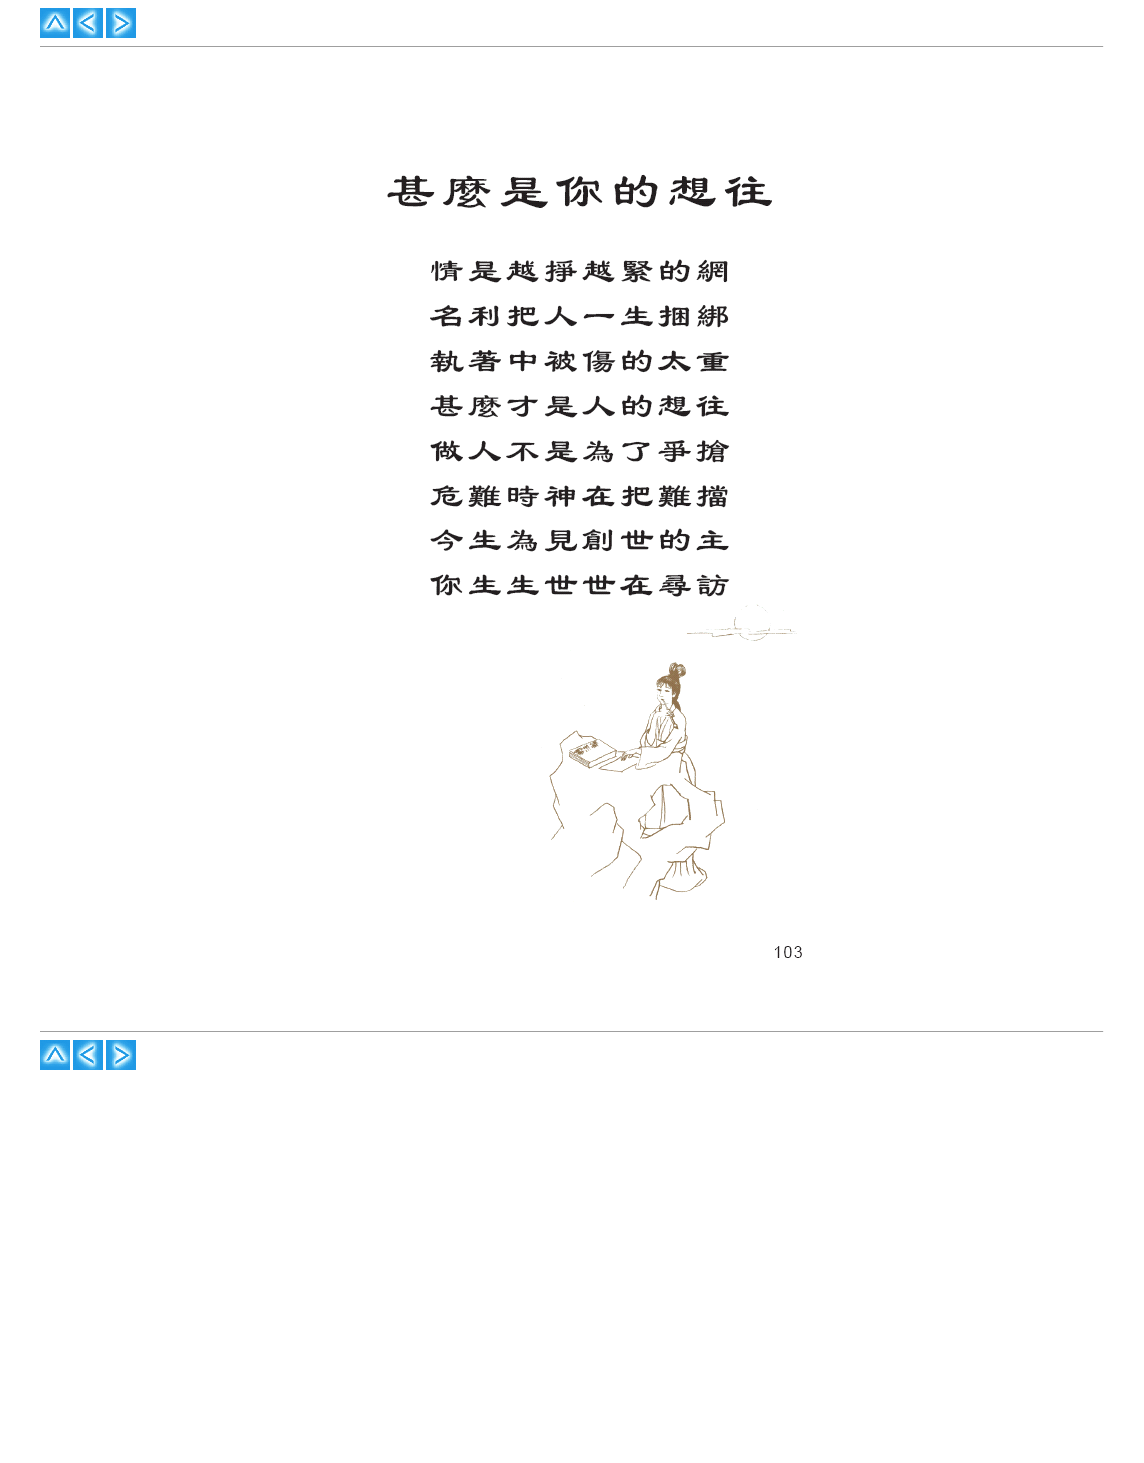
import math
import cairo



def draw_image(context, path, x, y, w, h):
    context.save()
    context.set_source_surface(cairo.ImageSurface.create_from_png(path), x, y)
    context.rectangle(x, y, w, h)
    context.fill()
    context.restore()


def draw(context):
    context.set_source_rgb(1, 1, 1)
    context.paint()
    draw_image(context, "images/1.png", 40, 8, 30, 30)
    draw_image(context, "images/2.png", 73, 8, 30, 30)
    draw_image(context, "images/3.png", 106, 8, 30, 30)
    context.set_source_rgb(159 / 255, 159 / 255, 159 / 255)
    context.rectangle(40, 46, 1064, 1)
    context.fill()
    context.set_source_rgb(238 / 255, 238 / 255, 238 / 255)
    context.rectangle(1103, 46, 1, 1)
    context.fill()
    draw_image(context, "images/4.png", 387, 174, 415, 784)
    context.set_source_rgb(159 / 255, 159 / 255, 159 / 255)
    context.rectangle(40, 1031, 1064, 1)
    context.fill()
    context.set_source_rgb(238 / 255, 238 / 255, 238 / 255)
    context.rectangle(1103, 1031, 1, 1)
    context.fill()
    draw_image(context, "images/1.png", 40, 1040, 30, 30)
    draw_image(context, "images/2.png", 73, 1040, 30, 30)
    draw_image(context, "images/3.png", 106, 1040, 30, 30)


surface = cairo.ImageSurface(cairo.Format.RGB24, 1144, 1463)
context = cairo.Context(surface)
options = cairo.FontOptions()
options.set_hint_metrics(cairo.HintMetrics.OFF)
options.set_hint_style(cairo.HintStyle.NONE)
context.set_font_options(options)
context.set_miter_limit(4)
draw(context)
surface.write_to_png("out.png")
